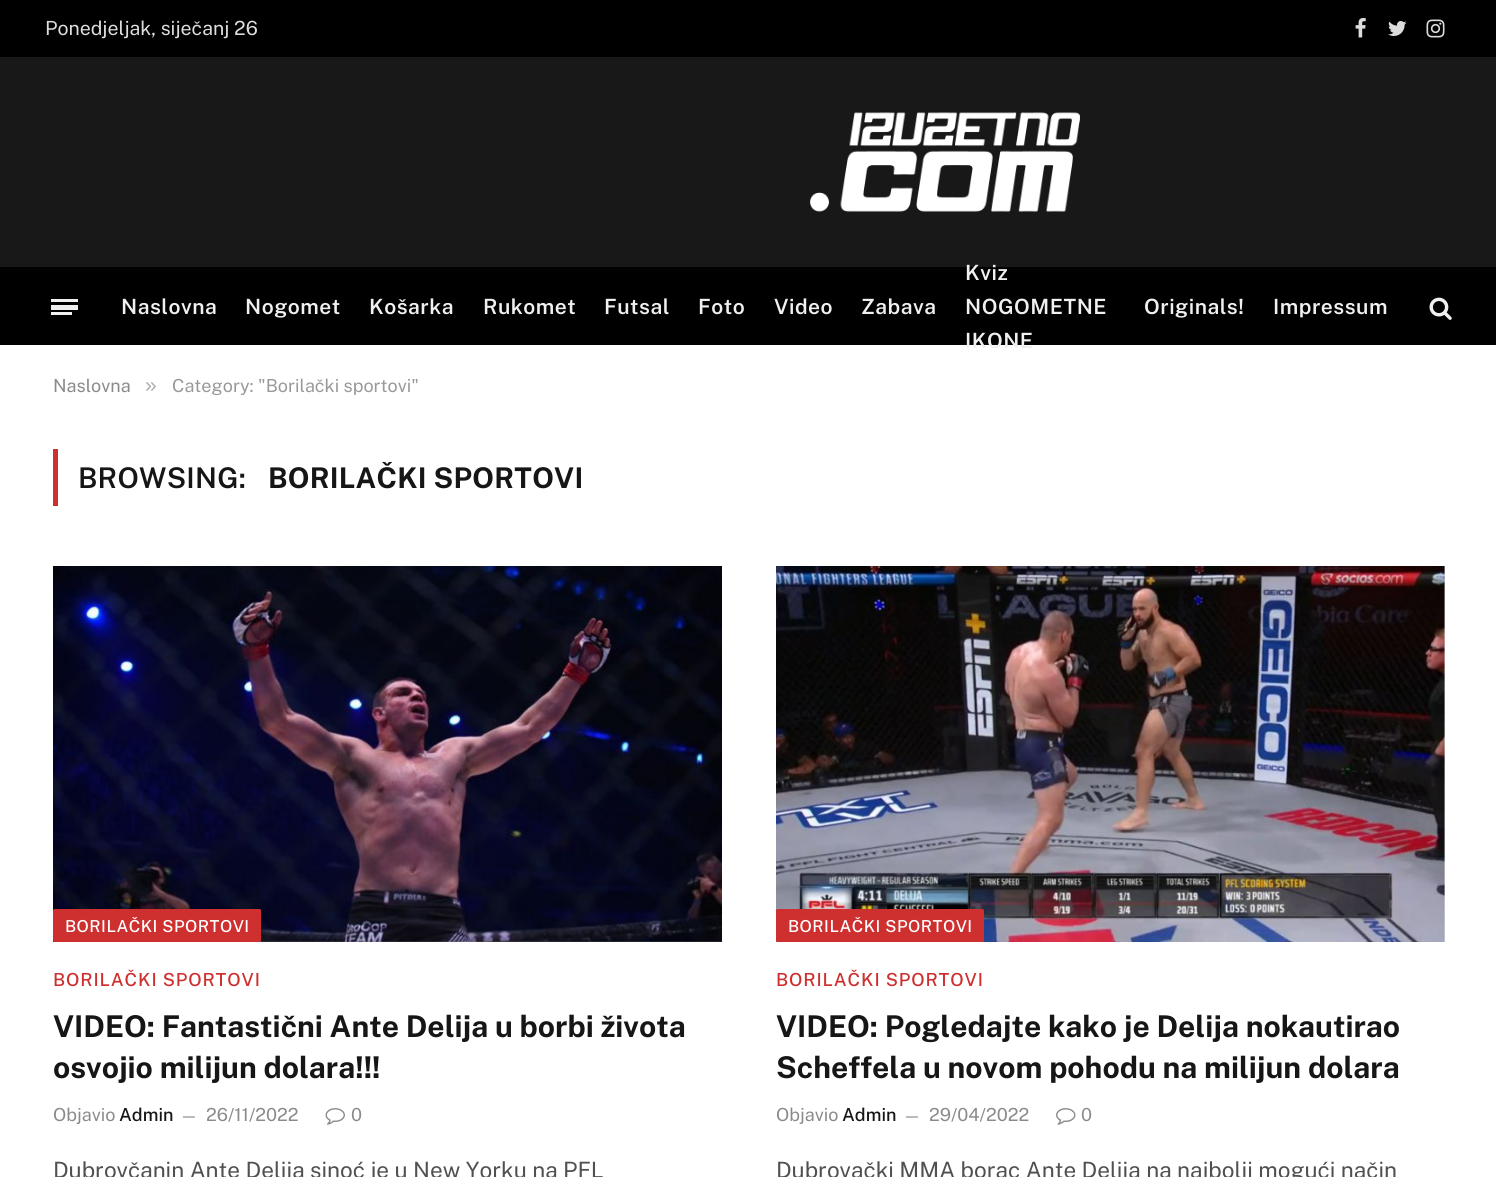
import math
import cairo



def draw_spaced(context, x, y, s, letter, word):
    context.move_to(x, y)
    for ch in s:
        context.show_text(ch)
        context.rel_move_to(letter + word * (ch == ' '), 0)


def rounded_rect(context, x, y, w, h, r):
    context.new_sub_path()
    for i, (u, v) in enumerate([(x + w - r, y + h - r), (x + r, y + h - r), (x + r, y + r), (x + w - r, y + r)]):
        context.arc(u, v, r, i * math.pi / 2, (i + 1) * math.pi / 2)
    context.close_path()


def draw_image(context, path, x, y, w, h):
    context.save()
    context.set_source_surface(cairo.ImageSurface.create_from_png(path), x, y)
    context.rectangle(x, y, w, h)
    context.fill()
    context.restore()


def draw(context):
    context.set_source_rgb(1, 1, 1)
    context.paint()
    context.set_source_rgb(0, 0, 0)
    context.rectangle(0, 0, 1496, 57)
    context.fill()
    draw_image(context, "images/1.png", 1355, 18, 11, 20)
    draw_image(context, "images/2.png", 1388, 21, 19, 15)
    draw_image(context, "images/3.png", 1426, 19, 19, 19)
    context.set_source_rgb(24 / 255, 24 / 255, 24 / 255)
    context.rectangle(0, 57, 1496, 210)
    context.fill()
    draw_image(context, "images/4.png", 810, 112, 270, 100)
    context.set_source_rgb(0, 0, 0)
    context.rectangle(0, 267, 1496, 78)
    context.fill()
    context.set_source_rgb(240 / 255, 240 / 255, 240 / 255)
    context.rectangle(51, 312, 21, 3)
    context.fill()
    context.rectangle(51, 299, 27, 3)
    context.fill()
    context.rectangle(51, 305, 27, 5)
    context.fill()
    draw_image(context, "images/5.png", 1429, 297, 23, 23)
    context.set_source_rgb(206 / 255, 47 / 255, 47 / 255)
    context.rectangle(53, 449, 5, 57)
    context.fill()
    draw_image(context, "images/6.png", 53, 566, 669, 376)
    rounded_rect(context, 53, 909, 208, 33, 1.5)
    context.fill()
    draw_image(context, "images/7.png", 325, 1108, 20, 17)
    draw_image(context, "images/8.png", 776, 566, 669, 376)
    rounded_rect(context, 776, 909, 208, 33, 1.5)
    context.fill()
    draw_image(context, "images/9.png", 1056, 1108, 20, 17)
    context.select_font_face("Public Sans")
    context.set_font_size(19.5)
    context.set_source_rgb(221 / 255, 221 / 255, 221 / 255)
    context.move_to(45, 35)
    context.show_text("Ponedjeljak, siječanj 26")
    context.select_font_face("Public Sans SemiBold")
    context.set_font_size(21)
    context.set_source_rgb(240 / 255, 240 / 255, 240 / 255)
    draw_spaced(context, 121, 314, "Naslovna", 0.5, 0)
    draw_spaced(context, 245, 314, "Nogomet", 0.5, 0)
    draw_spaced(context, 369, 314, "Košarka", 0.5, 0)
    draw_spaced(context, 483, 314, "Rukomet", 0.5, 0)
    draw_spaced(context, 604, 314, "Futsal", 0.5, 0)
    draw_spaced(context, 698, 314, "Foto", 0.5, 0)
    draw_spaced(context, 774, 314, "Video", 0.5, 0)
    draw_spaced(context, 861, 314, "Zabava", 0.5, 0)
    draw_spaced(context, 965, 280, "Kviz", 0.5, 0)
    draw_spaced(context, 965, 314, "NOGOMETNE", 0.5, 0)
    draw_spaced(context, 965, 348, "IKONE", 0.5, 0)
    draw_spaced(context, 1144, 314, "Originals!", 0.5, 0)
    draw_spaced(context, 1273, 314, "Impressum", 0.5, 0)
    context.select_font_face("Public Sans")
    context.set_font_size(18)
    context.set_source_rgb(138 / 255, 138 / 255, 138 / 255)
    context.move_to(53, 392)
    context.show_text("Naslovna")
    context.select_font_face("Liberation Sans")
    context.set_font_size(21)
    context.set_source_rgb(173 / 255, 173 / 255, 173 / 255)
    context.move_to(145, 392)
    context.show_text("»")
    context.select_font_face("Public Sans")
    context.set_font_size(18)
    context.set_source_rgb(153 / 255, 153 / 255, 153 / 255)
    context.move_to(172, 392)
    context.show_text("Category: \"Borilački sportovi\"")
    context.select_font_face("Public Sans SemiBold")
    context.set_font_size(28.5)
    context.set_source_rgb(22 / 255, 22 / 255, 22 / 255)
    draw_spaced(context, 78, 488, "BROWSING:", 0.25, 0)
    context.select_font_face("Public Sans", cairo.FontSlant.NORMAL, cairo.FontWeight.BOLD)
    draw_spaced(context, 268, 488, "BORILAČKI SPORTOVI", 0.25, 0)
    context.select_font_face("Public Sans Medium")
    context.set_font_size(16.5)
    context.set_source_rgb(1, 1, 1)
    draw_spaced(context, 65, 932, "BORILAČKI SPORTOVI", 0.5, 0)
    context.set_font_size(18)
    context.set_source_rgb(206 / 255, 47 / 255, 47 / 255)
    draw_spaced(context, 53, 986, "BORILAČKI SPORTOVI", 0.9, 0)
    context.select_font_face("Public Sans", cairo.FontSlant.NORMAL, cairo.FontWeight.BOLD)
    context.set_font_size(30)
    context.set_source_rgb(22 / 255, 22 / 255, 22 / 255)
    context.move_to(53, 1037)
    context.show_text("VIDEO: Fantastični Ante Delija u borbi života")
    context.move_to(53, 1078)
    context.show_text("osvojio milijun dolara!!!")
    context.select_font_face("Public Sans")
    context.set_font_size(18)
    context.set_source_rgb(138 / 255, 138 / 255, 138 / 255)
    context.move_to(53, 1121)
    context.show_text("Objavio")
    context.select_font_face("Public Sans Medium")
    context.set_source_rgb(22 / 255, 22 / 255, 22 / 255)
    context.move_to(119, 1121)
    context.show_text("Admin")
    context.select_font_face("Public Sans")
    context.set_font_size(16)
    context.set_source_rgb(138 / 255, 138 / 255, 138 / 255)
    context.move_to(180, 1121)
    context.show_text("—")
    context.set_font_size(18)
    context.move_to(206, 1121)
    context.show_text("26/11/2022")
    context.move_to(351, 1121)
    context.show_text("0")
    context.set_font_size(22.5)
    context.set_source_rgb(80 / 255, 80 / 255, 80 / 255)
    context.move_to(53, 1178)
    context.show_text("Dubrovčanin Ante Delija sinoć je u New Yorku na PFL")
    context.select_font_face("Public Sans Medium")
    context.set_font_size(16.5)
    context.set_source_rgb(1, 1, 1)
    draw_spaced(context, 788, 932, "BORILAČKI SPORTOVI", 0.5, 0)
    context.set_font_size(18)
    context.set_source_rgb(206 / 255, 47 / 255, 47 / 255)
    draw_spaced(context, 776, 986, "BORILAČKI SPORTOVI", 0.9, 0)
    context.select_font_face("Public Sans", cairo.FontSlant.NORMAL, cairo.FontWeight.BOLD)
    context.set_font_size(30)
    context.set_source_rgb(22 / 255, 22 / 255, 22 / 255)
    context.move_to(776, 1037)
    context.show_text("VIDEO: Pogledajte kako je Delija nokautirao")
    context.move_to(776, 1078)
    context.show_text("Scheffela u novom pohodu na milijun dolara")
    context.select_font_face("Public Sans")
    context.set_font_size(18)
    context.set_source_rgb(138 / 255, 138 / 255, 138 / 255)
    context.move_to(776, 1121)
    context.show_text("Objavio")
    context.select_font_face("Public Sans Medium")
    context.set_source_rgb(22 / 255, 22 / 255, 22 / 255)
    context.move_to(842, 1121)
    context.show_text("Admin")
    context.select_font_face("Public Sans")
    context.set_font_size(16)
    context.set_source_rgb(138 / 255, 138 / 255, 138 / 255)
    context.move_to(903, 1121)
    context.show_text("—")
    context.set_font_size(18)
    context.move_to(929, 1121)
    context.show_text("29/04/2022")
    context.move_to(1081, 1121)
    context.show_text("0")
    context.set_font_size(22.5)
    context.set_source_rgb(80 / 255, 80 / 255, 80 / 255)
    context.move_to(776, 1178)
    context.show_text("Dubrovački MMA borac Ante Delija na najbolji mogući način")


surface = cairo.ImageSurface(cairo.Format.RGB24, 1496, 1177)
context = cairo.Context(surface)
options = cairo.FontOptions()
options.set_hint_metrics(cairo.HintMetrics.OFF)
options.set_hint_style(cairo.HintStyle.NONE)
context.set_font_options(options)
context.set_miter_limit(4)
draw(context)
surface.write_to_png("out.png")
